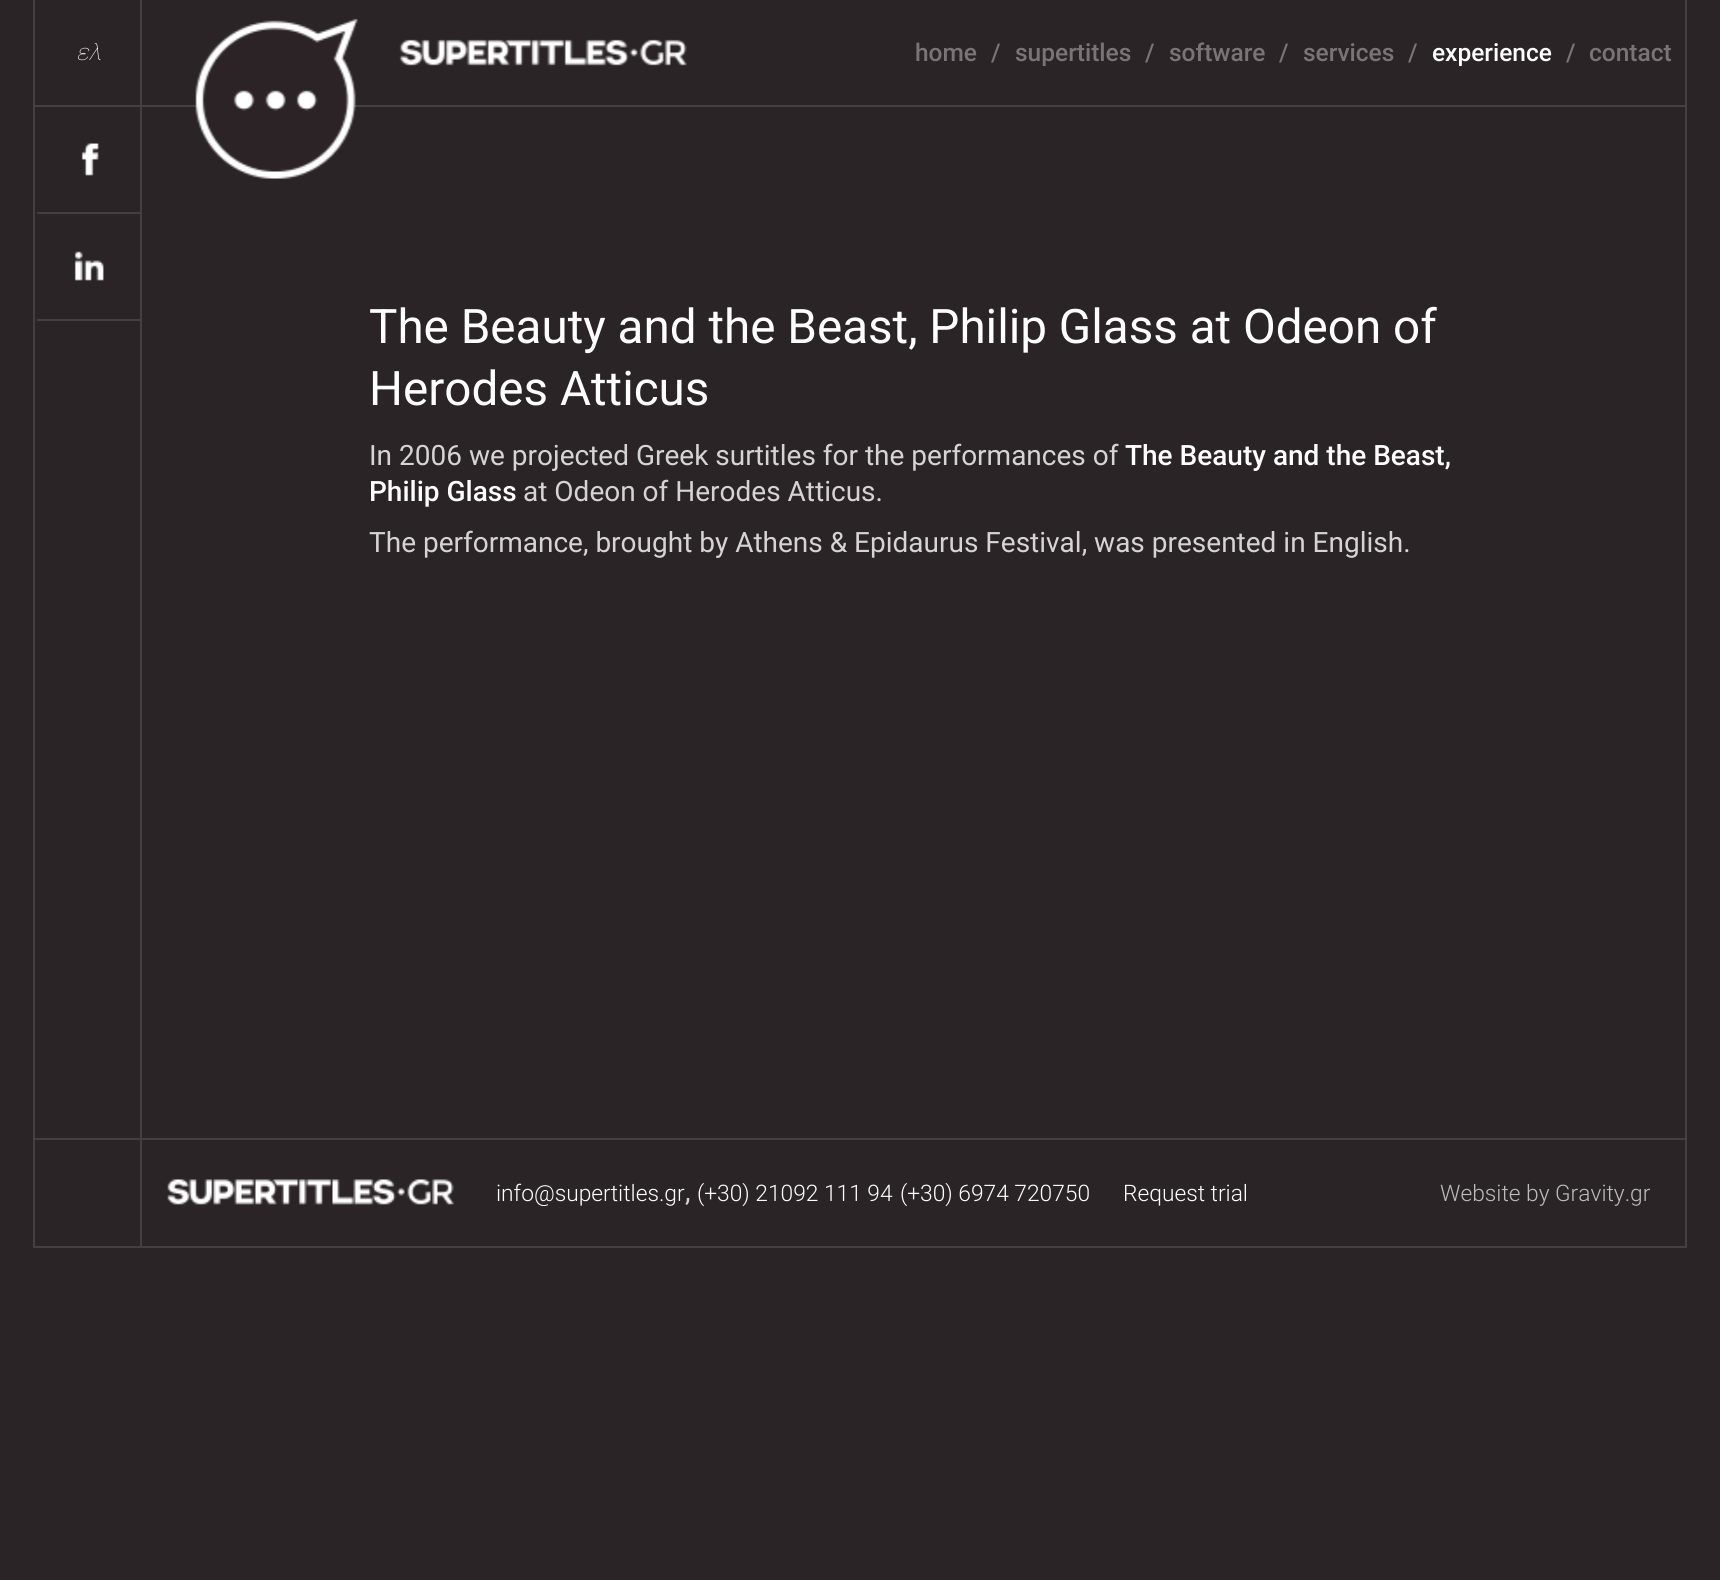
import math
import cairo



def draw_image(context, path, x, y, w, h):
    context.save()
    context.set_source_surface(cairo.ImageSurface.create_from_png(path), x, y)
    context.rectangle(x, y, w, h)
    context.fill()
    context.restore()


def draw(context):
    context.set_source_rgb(43 / 255, 36 / 255, 38 / 255)
    context.paint()
    context.set_source_rgb(69 / 255, 63 / 255, 65 / 255)
    context.rectangle(1685, 0, 2, 1139)
    context.fill()
    context.rectangle(33, 1138, 1654, 2)
    context.fill()
    context.rectangle(33, 0, 2, 1139)
    context.fill()
    context.rectangle(33, 105, 1654, 2)
    context.fill()
    context.set_source_rgb(43 / 255, 36 / 255, 38 / 255)
    context.rectangle(37, 105, 101, 2)
    context.fill()
    context.set_source_rgb(69 / 255, 63 / 255, 65 / 255)
    context.rectangle(37, 105, 105, 2)
    context.fill()
    draw_image(context, "images/1.png", 81, 143, 18, 33)
    context.rectangle(140, 107, 2, 1031)
    context.fill()
    context.rectangle(37, 212, 105, 2)
    context.fill()
    draw_image(context, "images/2.png", 74, 251, 30, 30)
    context.rectangle(37, 319, 105, 2)
    context.fill()
    context.rectangle(140, 0, 2, 105)
    context.fill()
    draw_image(context, "images/3.png", 195, 18, 492, 161)
    context.rectangle(1685, 1139, 2, 109)
    context.fill()
    context.rectangle(33, 1246, 1654, 2)
    context.fill()
    context.rectangle(33, 1139, 2, 109)
    context.fill()
    context.rectangle(140, 1139, 2, 107)
    context.fill()
    draw_image(context, "images/4.png", 167, 1179, 287, 26)
    context.select_font_face("Roboto Thin", cairo.FontSlant.ITALIC)
    context.set_font_size(22.75)
    context.set_source_rgb(1, 1, 1)
    context.move_to(76, 60)
    context.show_text("ελ")
    context.select_font_face("Roboto Medium")
    context.set_font_size(24.5)
    context.set_source_rgb(123 / 255, 116 / 255, 118 / 255)
    context.move_to(915, 61)
    context.show_text("home")
    context.move_to(991, 61)
    context.show_text("/")
    context.move_to(1015, 61)
    context.show_text("supertitles")
    context.move_to(1145, 61)
    context.show_text("/")
    context.move_to(1169, 61)
    context.show_text("software")
    context.move_to(1279, 61)
    context.show_text("/")
    context.move_to(1303, 61)
    context.show_text("services")
    context.move_to(1408, 61)
    context.show_text("/")
    context.set_source_rgb(1, 1, 1)
    context.move_to(1432, 61)
    context.show_text("experience")
    context.set_source_rgb(123 / 255, 116 / 255, 118 / 255)
    context.move_to(1566, 61)
    context.show_text("/")
    context.move_to(1589, 61)
    context.show_text("contact")
    context.select_font_face("Roboto")
    context.set_font_size(47.6)
    context.set_source_rgb(1, 1, 1)
    context.move_to(369, 343)
    context.show_text("The Beauty and the Beast, Philip Glass at Odeon of")
    context.move_to(369, 405)
    context.show_text("Herodes Atticus")
    context.set_font_size(28)
    context.set_source_rgb(213 / 255, 211 / 255, 212 / 255)
    context.move_to(369, 465)
    context.show_text("In 2006 we projected Greek surtitles for the performances of")
    context.select_font_face("Roboto Medium")
    context.set_source_rgb(1, 1, 1)
    context.move_to(1125, 465)
    context.show_text("The Beauty and the Beast,")
    context.move_to(369, 501)
    context.show_text("Philip Glass")
    context.select_font_face("Roboto")
    context.set_source_rgb(213 / 255, 211 / 255, 212 / 255)
    context.move_to(523, 501)
    context.show_text("at Odeon of Herodes Atticus.")
    context.move_to(369, 552)
    context.show_text("The performance, brought by Athens & Epidaurus Festival, was presented in English.")
    context.select_font_face("Roboto Light")
    context.set_font_size(22.75)
    context.set_source_rgb(1, 1, 1)
    context.move_to(496, 1201)
    context.show_text("info@supertitles.gr")
    context.select_font_face("Roboto")
    context.set_font_size(28)
    context.set_source_rgb(213 / 255, 211 / 255, 212 / 255)
    context.move_to(685, 1201)
    context.show_text(",")
    context.select_font_face("Roboto Light")
    context.set_font_size(22.75)
    context.set_source_rgb(1, 1, 1)
    context.move_to(697, 1201)
    context.show_text("(+30) 21092 111 94")
    context.move_to(900, 1201)
    context.show_text("(+30) 6974 720750")
    context.move_to(1123, 1201)
    context.show_text("Request trial")
    context.set_source_rgb(187 / 255, 187 / 255, 187 / 255)
    context.move_to(1440, 1201)
    context.show_text("Website by Gravity.gr")


surface = cairo.ImageSurface(cairo.Format.RGB24, 1720, 1580)
context = cairo.Context(surface)
options = cairo.FontOptions()
options.set_hint_metrics(cairo.HintMetrics.OFF)
options.set_hint_style(cairo.HintStyle.NONE)
context.set_font_options(options)
context.set_miter_limit(4)
draw(context)
surface.write_to_png("out.png")
